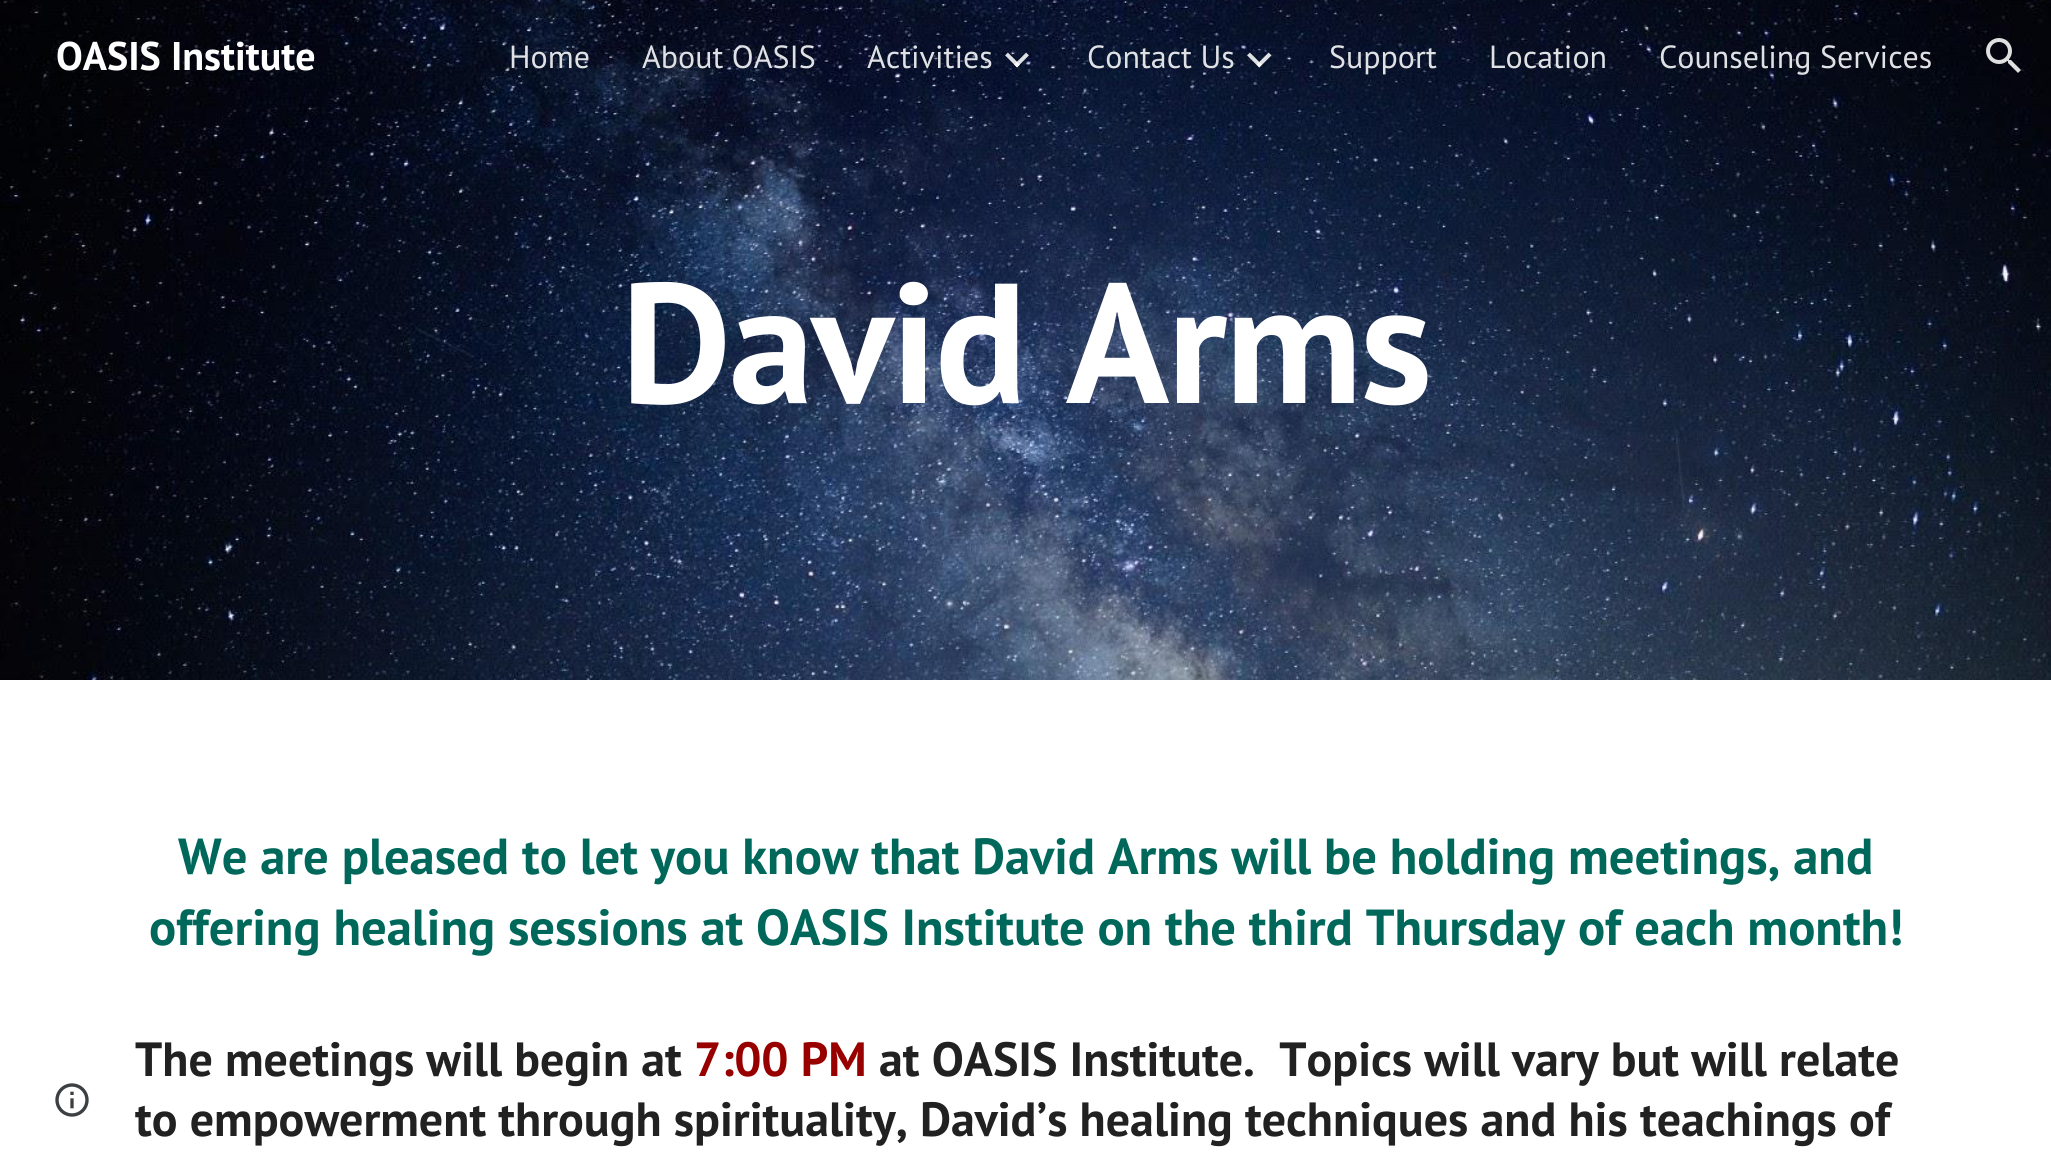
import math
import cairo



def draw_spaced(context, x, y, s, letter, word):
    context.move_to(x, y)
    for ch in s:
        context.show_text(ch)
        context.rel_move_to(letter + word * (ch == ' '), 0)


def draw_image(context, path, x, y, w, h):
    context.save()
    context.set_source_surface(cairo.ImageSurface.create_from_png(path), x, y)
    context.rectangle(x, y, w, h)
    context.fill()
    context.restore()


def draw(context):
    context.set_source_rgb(1, 1, 1)
    context.paint()
    draw_image(context, "images/3.png", 0, 0, 2051, 680)
    context.new_path()
    context.move_to(1006.5, 54)
    context.line_to(1018.5, 66)
    context.set_source_rgba(1, 1, 1, 0.87)
    context.set_line_width(4)
    context.stroke()
    context.new_path()
    context.move_to(1015.5, 66)
    context.line_to(1027.5, 54)
    context.stroke()
    context.new_path()
    context.move_to(1248.5, 54)
    context.line_to(1260.5, 66)
    context.stroke()
    context.new_path()
    context.move_to(1258, 66)
    context.line_to(1270, 54)
    context.stroke()
    draw_image(context, "images/1.png", 1986, 38, 35, 35)
    draw_image(context, "images/2.png", 55, 1083, 34, 34)
    context.select_font_face("PT Sans", cairo.FontSlant.NORMAL, cairo.FontWeight.BOLD)
    context.set_font_size(40)
    context.set_source_rgb(1, 1, 1)
    context.move_to(56, 70)
    context.show_text("OASIS Institute")
    context.select_font_face("PT Sans")
    context.set_font_size(32)
    context.set_source_rgb(223 / 255, 225 / 255, 228 / 255)
    context.move_to(509, 68)
    context.show_text("Home")
    context.move_to(642, 68)
    context.show_text("About OASIS")
    context.move_to(867, 68)
    context.show_text("Activities")
    context.move_to(1087, 68)
    context.show_text("Contact Us")
    context.move_to(1329, 68)
    context.show_text("Support")
    context.move_to(1489, 68)
    context.show_text("Location")
    context.move_to(1659, 68)
    context.show_text("Counseling Services")
    context.select_font_face("PT Sans", cairo.FontSlant.NORMAL, cairo.FontWeight.BOLD)
    context.set_font_size(170.5)
    context.set_source_rgb(1, 1, 1)
    draw_spaced(context, 621, 403, "David Arms", -2, 0)
    context.set_font_size(50.65)
    context.set_source_rgb(0, 104 / 255, 91 / 255)
    context.move_to(178, 874)
    context.show_text("We are pleased to let you know that David Arms will be holding meetings, and")
    context.move_to(149, 945)
    context.show_text("offering healing sessions at OASIS Institute on the third Thursday of each month!")
    context.set_font_size(48)
    context.set_source_rgb(33 / 255, 33 / 255, 33 / 255)
    context.move_to(135, 1076)
    context.show_text("The meetings will begin at")
    context.set_source_rgb(152 / 255, 0, 0)
    context.move_to(694, 1076)
    context.show_text("7:00 PM")
    context.set_source_rgb(33 / 255, 33 / 255, 33 / 255)
    context.move_to(879, 1076)
    context.show_text("at OASIS Institute.  Topics will vary but will relate")
    context.move_to(135, 1136)
    context.show_text("to empowerment through spirituality, David’s healing techniques and his teachings of")


surface = cairo.ImageSurface(cairo.Format.RGB24, 2051, 1167)
context = cairo.Context(surface)
options = cairo.FontOptions()
options.set_hint_metrics(cairo.HintMetrics.OFF)
options.set_hint_style(cairo.HintStyle.NONE)
context.set_font_options(options)
context.set_miter_limit(4)
draw(context)
surface.write_to_png("out.png")
